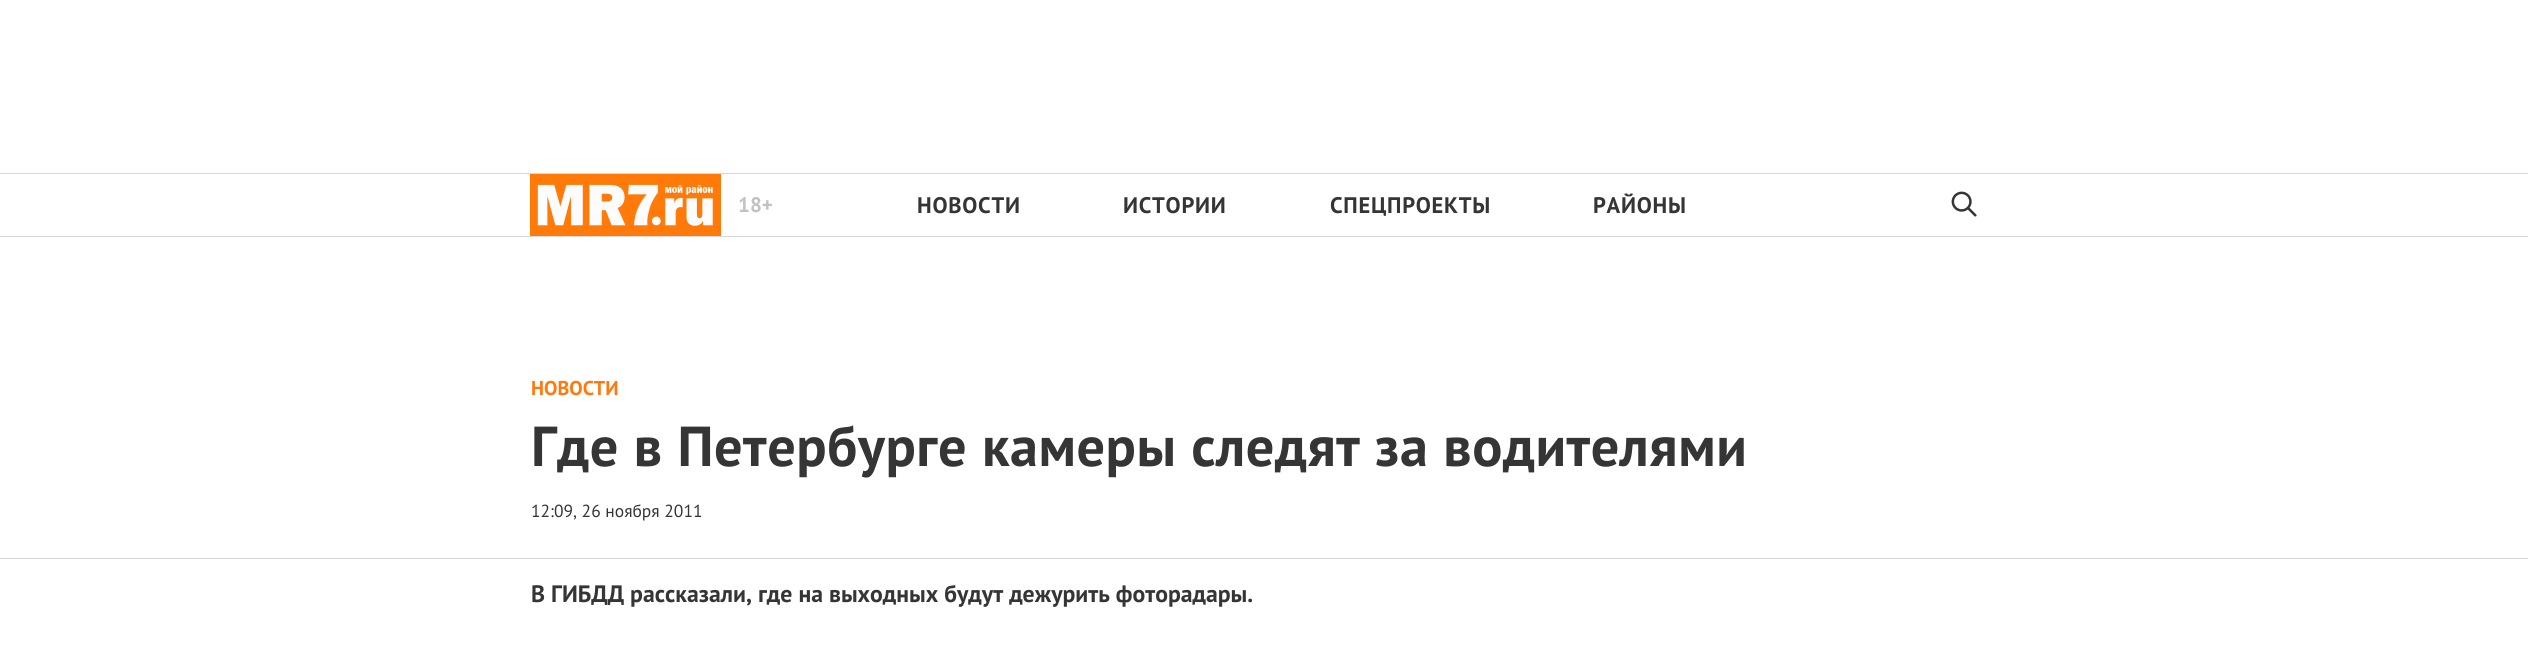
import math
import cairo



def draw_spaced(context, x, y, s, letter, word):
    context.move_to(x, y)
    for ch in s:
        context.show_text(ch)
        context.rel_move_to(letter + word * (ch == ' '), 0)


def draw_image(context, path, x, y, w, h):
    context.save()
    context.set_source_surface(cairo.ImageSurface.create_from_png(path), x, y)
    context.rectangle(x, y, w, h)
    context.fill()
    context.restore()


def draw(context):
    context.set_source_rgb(1, 1, 1)
    context.paint()
    context.set_source_rgb(215 / 255, 215 / 255, 215 / 255)
    context.rectangle(0, 173, 2528, 1)
    context.fill()
    context.rectangle(0, 236, 2528, 1)
    context.fill()
    draw_image(context, "images/1.png", 530, 174, 191, 62)
    draw_image(context, "images/2.png", 1951, 191, 26, 26)
    context.rectangle(0, 558, 2528, 1)
    context.fill()
    context.select_font_face("PT Sans", cairo.FontSlant.NORMAL, cairo.FontWeight.BOLD)
    context.set_font_size(21)
    context.set_source_rgb(194 / 255, 194 / 255, 194 / 255)
    context.move_to(738, 212)
    context.show_text("18+")
    context.set_font_size(22.5)
    context.set_source_rgb(53 / 255, 53 / 255, 53 / 255)
    draw_spaced(context, 917, 213, "НОВОСТИ", 0.75, 0)
    draw_spaced(context, 1123, 213, "ИСТОРИИ", 0.75, 0)
    draw_spaced(context, 1330, 213, "СПЕЦПРОЕКТЫ", 0.75, 0)
    draw_spaced(context, 1593, 213, "РАЙОНЫ", 0.75, 0)
    context.set_font_size(20)
    context.set_source_rgb(1, 121 / 255, 17 / 255)
    context.move_to(531, 395)
    context.show_text("НОВОСТИ")
    context.set_font_size(56.25)
    context.set_source_rgb(53 / 255, 53 / 255, 53 / 255)
    draw_spaced(context, 531, 466, "Где в Петербурге камеры следят за водителями", 0.55, 0)
    context.select_font_face("PT Sans")
    context.set_font_size(17.5)
    context.move_to(531, 517)
    context.show_text("12:09, 26 ноября 2011")
    context.select_font_face("PT Sans", cairo.FontSlant.NORMAL, cairo.FontWeight.BOLD)
    context.set_font_size(23.75)
    context.move_to(531, 602)
    context.show_text("В ГИБДД рассказали, где на выходных будут дежурить фоторадары.")


surface = cairo.ImageSurface(cairo.Format.RGB24, 2528, 649)
context = cairo.Context(surface)
options = cairo.FontOptions()
options.set_hint_metrics(cairo.HintMetrics.OFF)
options.set_hint_style(cairo.HintStyle.NONE)
context.set_font_options(options)
context.set_miter_limit(4)
draw(context)
surface.write_to_png("out.png")
